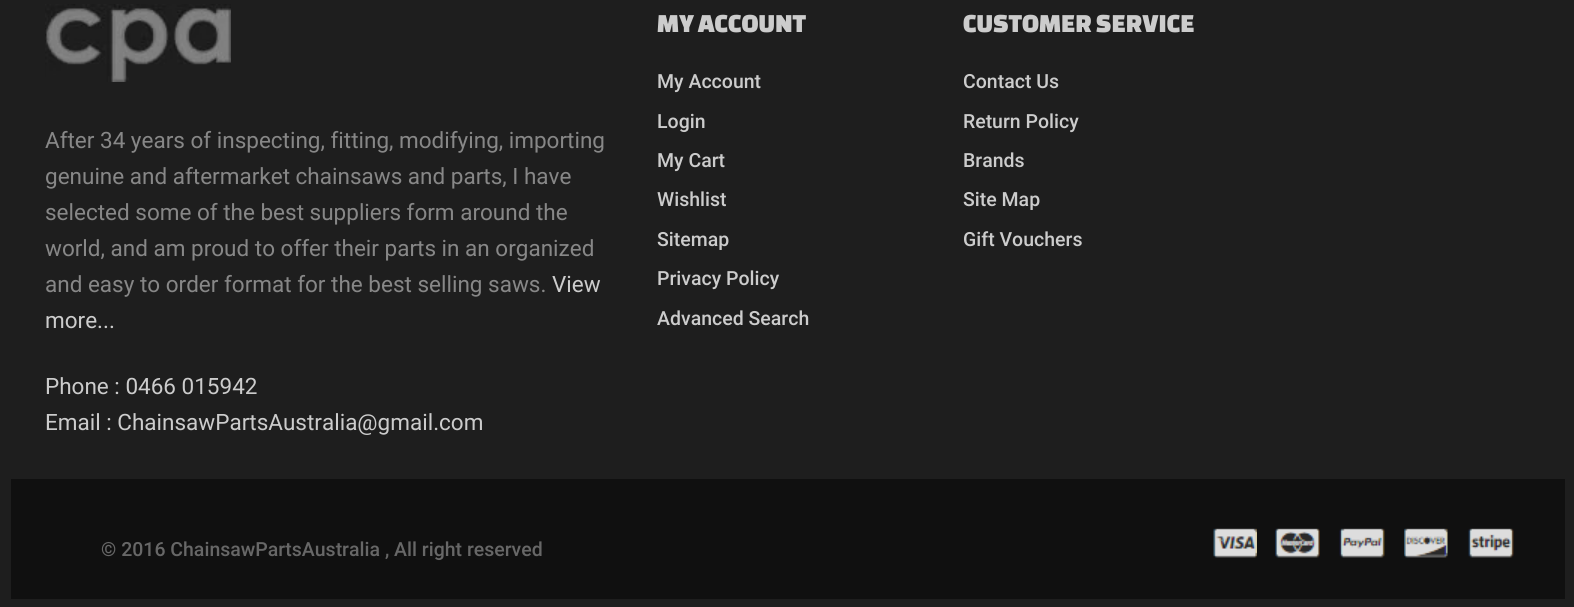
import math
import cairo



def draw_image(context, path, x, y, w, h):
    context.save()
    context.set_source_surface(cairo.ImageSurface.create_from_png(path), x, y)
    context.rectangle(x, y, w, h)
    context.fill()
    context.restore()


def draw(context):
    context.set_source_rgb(30 / 255, 30 / 255, 30 / 255)
    context.paint()
    draw_image(context, "images/1.png", 45, 4, 186, 78)
    context.set_source_rgb(16 / 255, 16 / 255, 16 / 255)
    context.rectangle(11, 479, 1554, 120)
    context.fill()
    draw_image(context, "images/2.png", 1213, 528, 44, 30)
    draw_image(context, "images/3.png", 1275, 528, 45, 30)
    draw_image(context, "images/4.png", 1339, 528, 46, 30)
    draw_image(context, "images/5.png", 1404, 528, 44, 30)
    draw_image(context, "images/6.png", 1468, 528, 46, 30)
    context.select_font_face("Roboto")
    context.set_font_size(22.5)
    context.set_source_rgb(135 / 255, 135 / 255, 135 / 255)
    context.move_to(45, 148)
    context.show_text("After 34 years of inspecting, fitting, modifying, importing")
    context.move_to(45, 184)
    context.show_text("genuine and aftermarket chainsaws and parts, I have")
    context.move_to(45, 220)
    context.show_text("selected some of the best suppliers form around the")
    context.move_to(45, 256)
    context.show_text("world, and am proud to offer their parts in an organized")
    context.move_to(45, 292)
    context.show_text("and easy to order format for the best selling saws.")
    context.set_source_rgb(204 / 255, 204 / 255, 204 / 255)
    context.move_to(552, 292)
    context.show_text("View")
    context.move_to(45, 328)
    context.show_text("more...")
    context.move_to(45, 394)
    context.show_text("Phone : 0466 015942")
    context.move_to(45, 430)
    context.show_text("Email : ChainsawPartsAustralia@gmail.com")
    context.select_font_face("Changa One")
    context.set_font_size(27)
    context.move_to(657, 32)
    context.show_text("MY ACCOUNT")
    context.select_font_face("Roboto Medium")
    context.set_font_size(19.5)
    context.move_to(657, 88)
    context.show_text("My Account")
    context.move_to(657, 128)
    context.show_text("Login")
    context.move_to(657, 167)
    context.show_text("My Cart")
    context.move_to(657, 206)
    context.show_text("Wishlist")
    context.move_to(657, 246)
    context.show_text("Sitemap")
    context.move_to(657, 285)
    context.show_text("Privacy Policy")
    context.move_to(657, 325)
    context.show_text("Advanced Search")
    context.select_font_face("Changa One")
    context.set_font_size(27)
    context.move_to(963, 32)
    context.show_text("CUSTOMER SERVICE")
    context.select_font_face("Roboto Medium")
    context.set_font_size(19.5)
    context.move_to(963, 88)
    context.show_text("Contact Us")
    context.move_to(963, 128)
    context.show_text("Return Policy")
    context.move_to(963, 167)
    context.show_text("Brands")
    context.move_to(963, 206)
    context.show_text("Site Map")
    context.move_to(963, 246)
    context.show_text("Gift Vouchers")
    context.set_source_rgb(103 / 255, 103 / 255, 103 / 255)
    context.move_to(101, 556)
    context.show_text("© 2016 ChainsawPartsAustralia , All right reserved")


surface = cairo.ImageSurface(cairo.Format.RGB24, 1574, 607)
context = cairo.Context(surface)
options = cairo.FontOptions()
options.set_hint_metrics(cairo.HintMetrics.OFF)
options.set_hint_style(cairo.HintStyle.NONE)
context.set_font_options(options)
context.set_miter_limit(4)
draw(context)
surface.write_to_png("out.png")
